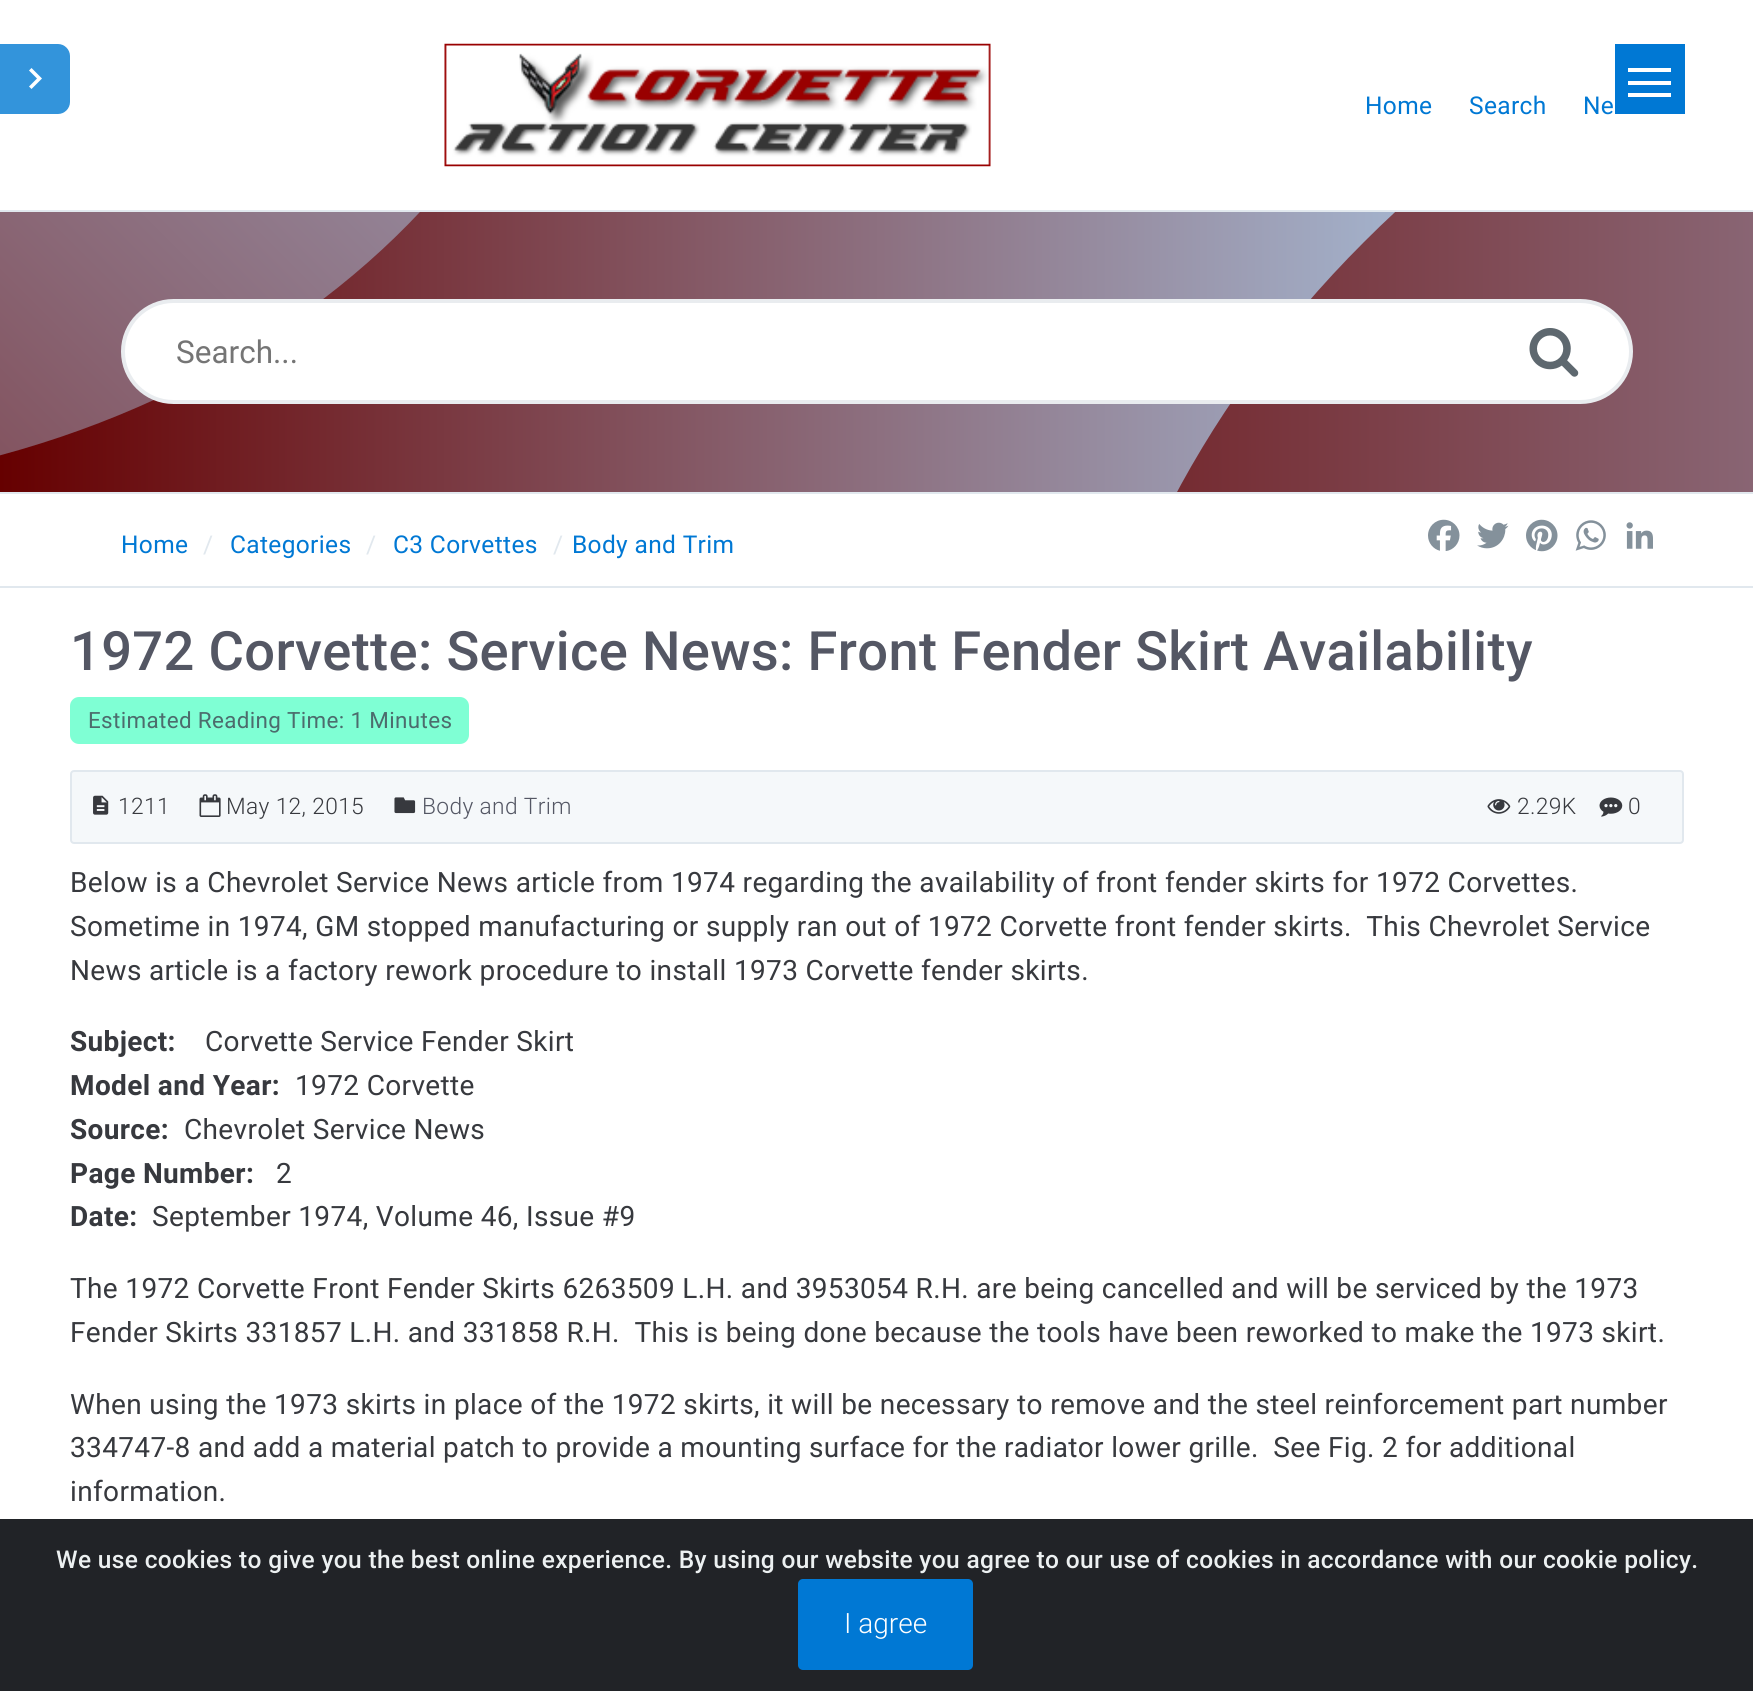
import math
import cairo



def draw_spaced(context, x, y, s, letter, word):
    context.move_to(x, y)
    for ch in s:
        context.show_text(ch)
        context.rel_move_to(letter + word * (ch == ' '), 0)


def rounded_rect(context, x, y, w, h, r):
    context.new_sub_path()
    for i, (u, v) in enumerate([(x + w - r, y + h - r), (x + r, y + h - r), (x + r, y + r), (x + w - r, y + r)]):
        context.arc(u, v, r, i * math.pi / 2, (i + 1) * math.pi / 2)
    context.close_path()


def draw_image(context, path, x, y, w, h):
    context.save()
    context.set_source_surface(cairo.ImageSurface.create_from_png(path), x, y)
    context.rectangle(x, y, w, h)
    context.fill()
    context.restore()


def draw(context):
    context.set_source_rgb(1, 1, 1)
    context.paint()
    draw_image(context, "images/1.png", 444, 43, 547, 124)
    context.set_source_rgb(0, 120 / 255, 212 / 255)
    context.rectangle(1615, 44, 70, 70)
    context.fill()
    context.set_source_rgb(1, 1, 1)
    context.rectangle(1628, 81, 43, 4)
    context.fill()
    context.rectangle(1628, 68, 43, 4)
    context.fill()
    context.rectangle(1628, 93, 43, 4)
    context.fill()
    gradient = cairo.LinearGradient(0, 352, 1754, 352)
    gradient.add_color_stop_rgba(0, 102 / 255, 0, 0, 1)
    gradient.add_color_stop_rgba(1, 179 / 255, 223 / 255, 1, 1)
    context.set_source(gradient)
    context.rectangle(0, 212, 1396, 280)
    context.fill()
    context.set_source_rgb(225 / 255, 232 / 255, 238 / 255)
    context.rectangle(0, 210, 1753, 2)
    context.fill()
    context.rectangle(0, 492, 1753, 2)
    context.fill()
    context.save()
    context.rectangle(0, 212, 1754, 280)
    context.clip()
    gradient = cairo.LinearGradient(-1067, 579, 507, -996)
    gradient.add_color_stop_rgba(0, 102 / 255, 0, 0, 1)
    gradient.add_color_stop_rgba(1, 179 / 255, 223 / 255, 1, 1)
    context.set_source(gradient)
    context.new_path()
    context.move_to(-280, -908)
    context.curve_to(203, -908, 595, -594.5, 595, -208)
    context.curve_to(595, 178.5, 203, 492, -280, 492)
    context.curve_to(-763, 492, -1155, 178.5, -1155, -208)
    context.curve_to(-1155, -594.5, -763, -908, -280, -908)
    context.close_path()
    context.fill()
    gradient = cairo.LinearGradient(745, 737, 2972, 737)
    gradient.add_color_stop_rgba(0, 102 / 255, 0, 0, 1)
    gradient.add_color_stop_rgba(1, 179 / 255, 223 / 255, 1, 1)
    context.set_source(gradient)
    context.new_path()
    context.move_to(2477, 118)
    context.curve_to(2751, 391, 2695, 890, 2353, 1232)
    context.curve_to(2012, 1573, 1513, 1629, 1240, 1355)
    context.curve_to(966, 1082, 1022, 583, 1364, 242)
    context.curve_to(1705, -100, 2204, -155, 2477, 118)
    context.close_path()
    context.fill()
    context.restore()
    context.set_source_rgb(1, 1, 1)
    rounded_rect(context, 123, 301, 1508, 101, 50.5)
    context.fill_preserve()
    context.set_source_rgb(233 / 255, 236 / 255, 239 / 255)
    context.set_line_width(4)
    context.stroke()
    draw_image(context, "images/2.png", 1529, 328, 50, 49)
    context.set_source_rgb(225 / 255, 232 / 255, 238 / 255)
    context.rectangle(0, 586, 1753, 2)
    context.fill()
    draw_image(context, "images/3.png", 1428, 519, 32, 32)
    draw_image(context, "images/4.png", 1477, 522, 32, 27)
    draw_image(context, "images/5.png", 1526, 519, 32, 33)
    draw_image(context, "images/6.png", 1575, 520, 31, 31)
    draw_image(context, "images/7.png", 1626, 522, 27, 27)
    context.set_source_rgb(51 / 255, 148 / 255, 219 / 255)
    context.new_path()
    context.move_to(0, 44)
    context.line_to(58, 44)
    context.curve_to(64.5, 44, 70, 49.5, 70, 56)
    context.line_to(70, 102)
    context.curve_to(70, 108.5, 64.5, 114, 58, 114)
    context.line_to(0, 114)
    context.close_path()
    context.fill()
    context.set_source_rgb(1, 1, 1)
    context.new_path()
    context.move_to(29, 86.5)
    context.line_to(37, 78.5)
    context.line_to(29, 70.5)
    context.line_to(31.5, 68)
    context.line_to(42, 78.5)
    context.line_to(31.5, 89)
    context.close_path()
    context.fill()
    context.set_source_rgb(127 / 255, 1, 212 / 255)
    rounded_rect(context, 70, 697, 399, 47, 9)
    context.fill()
    context.set_source_rgb(245 / 255, 248 / 255, 250 / 255)
    rounded_rect(context, 71, 771, 1612, 72, 3)
    context.fill_preserve()
    context.set_source_rgb(225 / 255, 232 / 255, 238 / 255)
    context.set_line_width(2)
    context.stroke()
    draw_image(context, "images/8.png", 93, 795, 16, 20)
    draw_image(context, "images/9.png", 199, 794, 22, 23)
    draw_image(context, "images/10.png", 394, 797, 22, 17)
    draw_image(context, "images/11.png", 1487, 799, 24, 15)
    draw_image(context, "images/12.png", 1599, 797, 24, 20)
    context.set_source_rgb(33 / 255, 35 / 255, 39 / 255)
    context.rectangle(0, 1519, 1753, 172)
    context.fill()
    context.set_source_rgb(0, 120 / 255, 212 / 255)
    rounded_rect(context, 798, 1579, 175, 91, 5)
    context.fill()
    context.select_font_face("Roboto")
    context.set_font_size(24.5)
    draw_spaced(context, 1365, 114, "Home", 0.35, 0)
    draw_spaced(context, 1469, 114, "Search", 0.35, 0)
    draw_spaced(context, 1583, 114, "Ne", 0.35, 0)
    context.set_font_size(31.5)
    context.set_source_rgb(117 / 255, 117 / 255, 117 / 255)
    context.move_to(176, 363)
    context.show_text("Search...")
    context.set_font_size(24.5)
    context.set_source_rgb(0, 120 / 255, 212 / 255)
    draw_spaced(context, 121, 553, "Home", 0.35, 0)
    context.set_source_rgb(225 / 255, 232 / 255, 238 / 255)
    draw_spaced(context, 203, 553, "/", 0.35, 0)
    context.set_source_rgb(0, 120 / 255, 212 / 255)
    draw_spaced(context, 230, 553, "Categories", 0.35, 0)
    context.set_source_rgb(225 / 255, 232 / 255, 238 / 255)
    draw_spaced(context, 366, 553, "/", 0.35, 0)
    context.set_source_rgb(0, 120 / 255, 212 / 255)
    draw_spaced(context, 393, 553, "C3 Corvettes", 0.35, 0)
    context.set_source_rgb(225 / 255, 232 / 255, 238 / 255)
    draw_spaced(context, 553, 553, "/", 0.35, 0)
    context.set_source_rgb(0, 120 / 255, 212 / 255)
    draw_spaced(context, 572, 553, "Body and Trim", 0.35, 0)
    context.select_font_face("Roboto Medium")
    context.set_font_size(54.25)
    context.set_source_rgb(84 / 255, 87 / 255, 100 / 255)
    draw_spaced(context, 70, 670, "1972 Corvette: Service News: Front Fender Skirt Availability", 0.35, 0)
    context.select_font_face("Roboto")
    context.set_font_size(22.4)
    context.set_source_rgb(76 / 255, 108 / 255, 109 / 255)
    draw_spaced(context, 88, 728, "Estimated Reading Time: 1 Minutes", 0.35, 0)
    context.select_font_face("Roboto Light")
    context.set_font_size(22.75)
    context.set_source_rgb(55 / 255, 57 / 255, 62 / 255)
    draw_spaced(context, 118, 814, "1211", 0.35, 0)
    draw_spaced(context, 226, 814, "May 12, 2015", 0.35, 0)
    context.set_source_rgb(84 / 255, 87 / 255, 100 / 255)
    draw_spaced(context, 422, 814, "Body and Trim", 0.35, 0)
    context.set_source_rgb(55 / 255, 57 / 255, 62 / 255)
    draw_spaced(context, 1517, 814, "2.29K", 0.35, 0)
    draw_spaced(context, 1628, 814, "0", 0.35, 0)
    context.select_font_face("Roboto")
    context.set_font_size(28)
    draw_spaced(context, 70, 892, "Below is a Chevrolet Service News article from 1974 regarding the availability of front fender skirts for 1972 Corvettes.", 0.35, 0)
    draw_spaced(context, 70, 936, "Sometime in 1974, GM stopped manufacturing or supply ran out of 1972 Corvette front fender skirts.  This Chevrolet Service", 0.35, 0)
    draw_spaced(context, 70, 980, "News article is a factory rework procedure to install 1973 Corvette fender skirts.", 0.35, 0)
    context.select_font_face("Roboto", cairo.FontSlant.NORMAL, cairo.FontWeight.BOLD)
    draw_spaced(context, 70, 1051, "Subject:", 0.35, 0)
    context.select_font_face("Roboto")
    draw_spaced(context, 205, 1051, "Corvette Service Fender Skirt", 0.35, 0)
    context.select_font_face("Roboto", cairo.FontSlant.NORMAL, cairo.FontWeight.BOLD)
    draw_spaced(context, 70, 1095, "Model and Year:", 0.35, 0)
    context.select_font_face("Roboto")
    draw_spaced(context, 295, 1095, "1972 Corvette", 0.35, 0)
    context.select_font_face("Roboto", cairo.FontSlant.NORMAL, cairo.FontWeight.BOLD)
    draw_spaced(context, 70, 1139, "Source:", 0.35, 0)
    context.select_font_face("Roboto")
    draw_spaced(context, 184, 1139, "Chevrolet Service News", 0.35, 0)
    context.select_font_face("Roboto", cairo.FontSlant.NORMAL, cairo.FontWeight.BOLD)
    draw_spaced(context, 70, 1183, "Page Number:", 0.35, 0)
    context.select_font_face("Roboto")
    draw_spaced(context, 276, 1183, "2", 0.35, 0)
    context.select_font_face("Roboto", cairo.FontSlant.NORMAL, cairo.FontWeight.BOLD)
    draw_spaced(context, 70, 1226, "Date:", 0.35, 0)
    context.select_font_face("Roboto")
    draw_spaced(context, 152, 1226, "September 1974, Volume 46, Issue #9", 0.35, 0)
    draw_spaced(context, 70, 1298, "The 1972 Corvette Front Fender Skirts 6263509 L.H. and 3953054 R.H. are being cancelled and will be serviced by the 1973", 0.35, 0)
    draw_spaced(context, 70, 1342, "Fender Skirts 331857 L.H. and 331858 R.H.  This is being done because the tools have been reworked to make the 1973 skirt.", 0.35, 0)
    draw_spaced(context, 70, 1414, "When using the 1973 skirts in place of the 1972 skirts, it will be necessary to remove and the steel reinforcement part number", 0.35, 0)
    draw_spaced(context, 70, 1457, "334747-8 and add a material patch to provide a mounting surface for the radiator lower grille.  See Fig. 2 for additional", 0.35, 0)
    draw_spaced(context, 70, 1501, "information.", 0.35, 0)
    context.select_font_face("Roboto Medium")
    context.set_font_size(24.5)
    context.set_source_rgb(236 / 255, 240 / 255, 241 / 255)
    draw_spaced(context, 56, 1568, "We use cookies to give you the best online experience. By using our website you agree to our use of cookies in accordance with our cookie policy.", 0.35, 0)
    context.select_font_face("Roboto Light")
    context.set_font_size(28)
    context.set_source_rgb(1, 1, 1)
    context.move_to(844, 1633)
    context.show_text("I agree")


surface = cairo.ImageSurface(cairo.Format.RGB24, 1753, 1691)
context = cairo.Context(surface)
options = cairo.FontOptions()
options.set_hint_metrics(cairo.HintMetrics.OFF)
options.set_hint_style(cairo.HintStyle.NONE)
context.set_font_options(options)
context.set_miter_limit(4)
draw(context)
surface.write_to_png("out.png")
